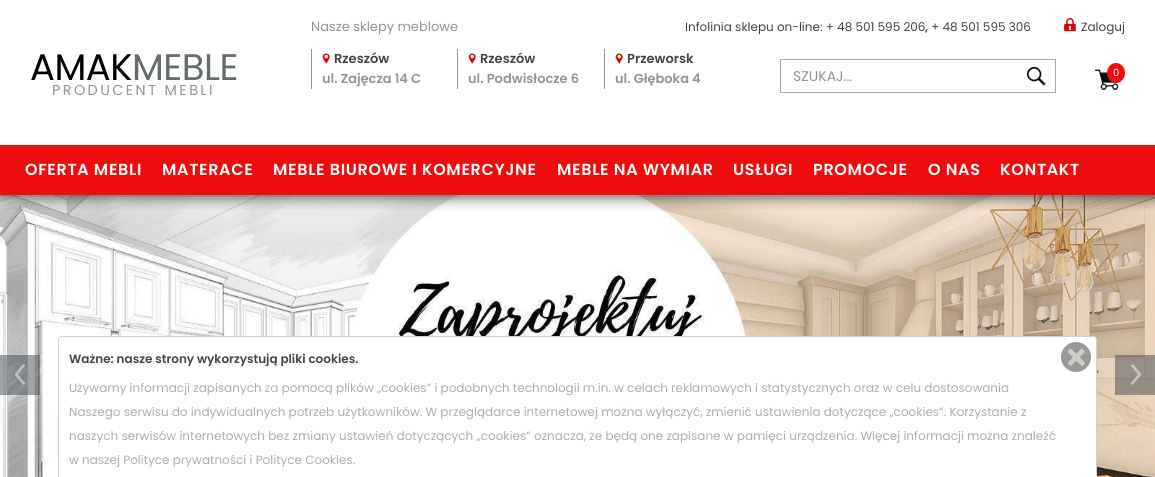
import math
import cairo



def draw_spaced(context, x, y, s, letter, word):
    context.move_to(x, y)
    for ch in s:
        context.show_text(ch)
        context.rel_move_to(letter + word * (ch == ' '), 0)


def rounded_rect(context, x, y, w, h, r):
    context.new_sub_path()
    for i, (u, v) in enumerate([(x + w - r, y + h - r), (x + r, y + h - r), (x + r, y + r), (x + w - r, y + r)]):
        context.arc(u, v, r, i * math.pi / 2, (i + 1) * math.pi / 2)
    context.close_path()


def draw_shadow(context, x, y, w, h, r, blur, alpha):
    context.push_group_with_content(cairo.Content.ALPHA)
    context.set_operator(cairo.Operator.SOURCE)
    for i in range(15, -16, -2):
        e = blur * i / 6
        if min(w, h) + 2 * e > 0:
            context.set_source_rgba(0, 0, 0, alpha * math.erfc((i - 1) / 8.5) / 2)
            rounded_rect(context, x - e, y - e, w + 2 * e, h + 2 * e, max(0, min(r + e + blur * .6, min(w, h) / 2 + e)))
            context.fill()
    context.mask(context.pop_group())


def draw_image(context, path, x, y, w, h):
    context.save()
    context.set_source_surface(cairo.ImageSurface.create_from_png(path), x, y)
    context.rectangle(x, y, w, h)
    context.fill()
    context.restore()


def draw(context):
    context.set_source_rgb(1, 1, 1)
    context.paint()
    draw_image(context, "images/5.png", 0, 195, 1155, 282)
    context.save()
    context.rectangle(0, 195, 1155, 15)
    context.clip()
    context.set_source_rgb(0, 0, 0)
    draw_shadow(context, 0, 1, 1155, 195, 0, 7.5, 0.75)
    context.restore()
    draw_image(context, "images/1.png", 1064, 18, 12, 13)
    context.set_source_rgb(148 / 255, 148 / 255, 148 / 255)
    context.rectangle(311, 49, 1, 40)
    context.fill()
    draw_image(context, "images/2.png", 322, 53, 8, 11)
    context.rectangle(457, 49, 1, 40)
    context.fill()
    draw_image(context, "images/2.png", 468, 53, 8, 11)
    context.rectangle(604, 49, 1, 40)
    context.fill()
    draw_image(context, "images/2.png", 615, 53, 8, 11)
    context.rectangle(780.5, 59.5, 275, 33)
    context.set_source_rgb(167 / 255, 167 / 255, 167 / 255)
    context.set_line_width(1)
    context.stroke()
    draw_image(context, "images/3.png", 1027, 67, 19, 19)
    draw_image(context, "images/4.png", 1095, 69, 24, 21)
    context.set_source_rgb(239 / 255, 12 / 255, 12 / 255)
    context.new_path()
    context.move_to(1116, 63)
    context.curve_to(1121, 63, 1125, 67.5, 1125, 73)
    context.curve_to(1125, 78.5, 1121, 83, 1116, 83)
    context.curve_to(1111, 83, 1107, 78.5, 1107, 73)
    context.curve_to(1107, 67.5, 1111, 63, 1116, 63)
    context.close_path()
    context.fill()
    context.rectangle(0, 145, 1155, 50)
    context.fill()
    context.set_source_rgba(69 / 255, 75 / 255, 78 / 255, 0.5)
    context.rectangle(0, 355, 40, 40)
    context.fill()
    draw_image(context, "images/6.png", 15, 364, 10, 22)
    context.rectangle(1115, 355, 40, 40)
    context.fill()
    draw_image(context, "images/7.png", 1131, 364, 10, 23)
    context.set_source_rgb(1, 1, 1)
    context.new_path()
    context.move_to(62, 336)
    context.line_to(1093, 336)
    context.curve_to(1095, 336, 1097, 338, 1097, 340)
    context.line_to(1097, 477)
    context.line_to(58, 477)
    context.line_to(58, 340)
    context.curve_to(58, 338, 60, 336, 62, 336)
    context.close_path()
    context.fill()
    context.set_source_rgb(210 / 255, 209 / 255, 206 / 255)
    context.set_fill_rule(cairo.FillRule.EVEN_ODD)
    context.new_path()
    context.move_to(62, 336)
    context.line_to(1093, 336)
    context.curve_to(1095, 336, 1097, 338, 1097, 340)
    context.line_to(1097, 477)
    context.line_to(58, 477)
    context.line_to(58, 340)
    context.curve_to(58, 338, 60, 336, 62, 336)
    context.close_path()
    context.move_to(62, 337)
    context.line_to(1093, 337)
    context.curve_to(1095, 337, 1096, 338, 1096, 340)
    context.line_to(1096, 477)
    context.line_to(59, 477)
    context.line_to(59, 340)
    context.curve_to(59, 338, 60, 337, 62, 337)
    context.close_path()
    context.fill()
    context.set_source_rgb(153 / 255, 154 / 255, 150 / 255)
    context.arc(1076, 357, 15, 0, 2 * math.pi)
    context.fill()
    draw_image(context, "images/8.png", 1068, 349, 17, 17)
    context.select_font_face("Poppins")
    context.set_font_size(13)
    context.set_source_rgb(148 / 255, 148 / 255, 148 / 255)
    context.move_to(311, 31)
    context.show_text("Nasze sklepy meblowe")
    context.set_font_size(12)
    context.set_source_rgb(68 / 255, 68 / 255, 68 / 255)
    context.move_to(685, 31)
    context.show_text("Infolinia sklepu on-line: + 48 501 595 206")
    context.select_font_face("Poppins SemiBold")
    context.move_to(925, 31)
    context.show_text(",")
    context.select_font_face("Poppins")
    context.move_to(931, 31)
    context.show_text("+ 48 501 595 306")
    context.move_to(1081, 31)
    context.show_text("Zaloguj")
    context.set_font_size(37)
    context.set_source_rgb(0, 0, 0)
    draw_spaced(context, 30, 80, "AMAK", -0.5, 0)
    context.set_source_rgb(101 / 255, 108 / 255, 110 / 255)
    draw_spaced(context, 132, 80, "MEBLE", -0.5, 0)
    context.set_font_size(14.4)
    context.set_source_rgb(148 / 255, 148 / 255, 148 / 255)
    draw_spaced(context, 52, 95, "PRODUCENT MEBLI", 2.4, 0)
    context.select_font_face("Poppins SemiBold")
    context.set_font_size(13)
    context.set_source_rgb(68 / 255, 68 / 255, 68 / 255)
    context.move_to(334, 63)
    context.show_text("Rzeszów")
    context.set_source_rgb(148 / 255, 148 / 255, 148 / 255)
    context.move_to(322, 83)
    context.show_text("ul. Zajęcza 14 C")
    context.set_source_rgb(68 / 255, 68 / 255, 68 / 255)
    context.move_to(480, 63)
    context.show_text("Rzeszów")
    context.set_source_rgb(148 / 255, 148 / 255, 148 / 255)
    context.move_to(468, 83)
    context.show_text("ul. Podwisłocze 6")
    context.set_source_rgb(68 / 255, 68 / 255, 68 / 255)
    context.move_to(627, 63)
    context.show_text("Przeworsk")
    context.set_source_rgb(148 / 255, 148 / 255, 148 / 255)
    context.move_to(615, 83)
    context.show_text("ul. Głęboka 4")
    context.select_font_face("Poppins")
    context.set_font_size(14)
    context.move_to(793, 81)
    context.show_text("SZUKAJ...")
    context.set_font_size(10)
    context.set_source_rgb(1, 1, 1)
    context.move_to(1113, 76)
    context.show_text("0")
    context.select_font_face("Poppins SemiBold")
    context.set_font_size(16)
    draw_spaced(context, 25, 175, "OFERTA MEBLI", 0.65, 0)
    draw_spaced(context, 162, 175, "MATERACE", 0.65, 0)
    draw_spaced(context, 273, 175, "MEBLE BIUROWE I KOMERCYJNE", 0.65, 0)
    draw_spaced(context, 557, 175, "MEBLE NA WYMIAR", 0.65, 0)
    draw_spaced(context, 733, 175, "USŁUGI", 0.65, 0)
    draw_spaced(context, 813, 175, "PROMOCJE", 0.65, 0)
    draw_spaced(context, 928, 175, "O NAS", 0.65, 0)
    draw_spaced(context, 1000, 175, "KONTAKT", 0.65, 0)
    context.set_font_size(12)
    context.set_source_rgb(68 / 255, 68 / 255, 68 / 255)
    context.move_to(69, 363)
    context.show_text("Ważne: nasze strony wykorzystują pliki cookies.")
    context.select_font_face("Poppins")
    context.set_source_rgb(174 / 255, 174 / 255, 174 / 255)
    context.move_to(69, 392)
    context.show_text("Używamy informacji zapisanych za pomocą plików „cookies” i podobnych technologii m.in. w celach reklamowych i statystycznych oraz w celu dostosowania")
    context.move_to(69, 416)
    context.show_text("Naszego serwisu do indywidualnych potrzeb użytkowników. W przeglądarce internetowej można wyłączyć, zmienić ustawienia dotyczące „cookies”. Korzystanie z")
    context.move_to(69, 440)
    context.show_text("naszych serwisów internetowych bez zmiany ustawień dotyczących „cookies” oznacza, że będą one zapisane w pamięci urządzenia. Więcej informacji można znaleźć")
    context.move_to(69, 464)
    context.show_text("w naszej Polityce prywatności i Polityce Cookies.")


surface = cairo.ImageSurface(cairo.Format.RGB24, 1155, 477)
context = cairo.Context(surface)
options = cairo.FontOptions()
options.set_hint_metrics(cairo.HintMetrics.OFF)
options.set_hint_style(cairo.HintStyle.NONE)
context.set_font_options(options)
context.set_miter_limit(4)
draw(context)
surface.write_to_png("out.png")
